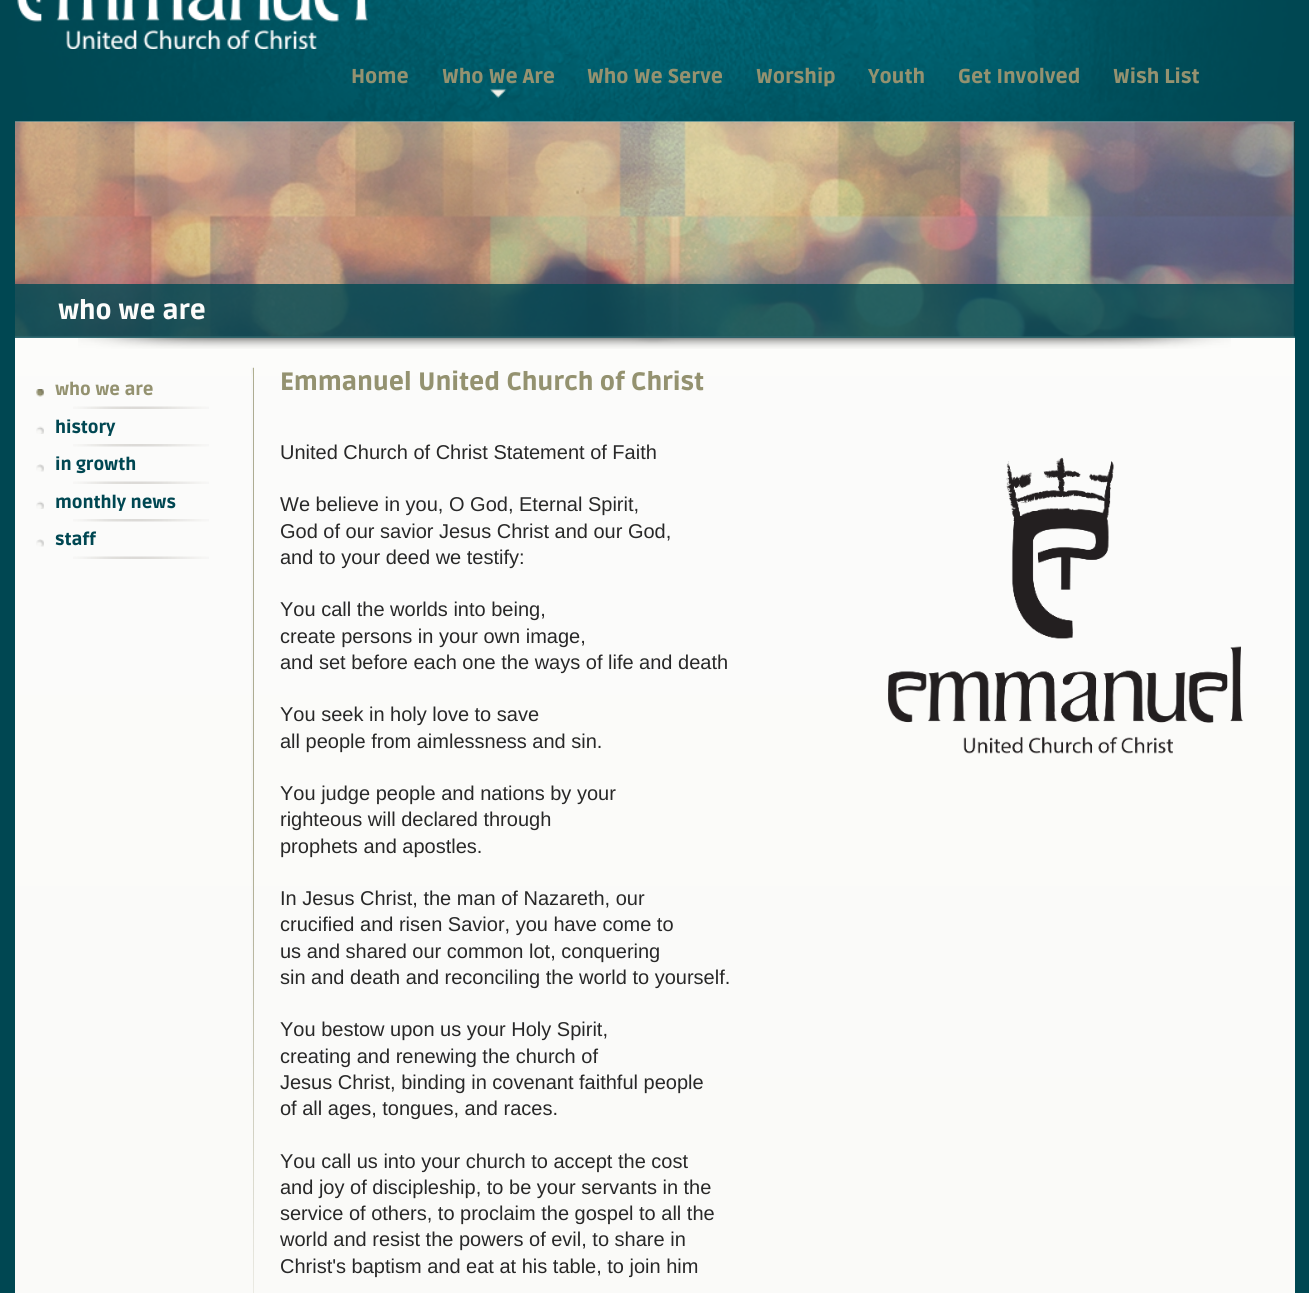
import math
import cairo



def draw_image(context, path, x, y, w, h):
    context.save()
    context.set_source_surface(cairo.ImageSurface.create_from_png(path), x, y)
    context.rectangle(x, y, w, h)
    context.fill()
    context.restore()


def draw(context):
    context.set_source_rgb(0, 71 / 255, 82 / 255)
    context.paint()
    gradient = cairo.LinearGradient(655, 121, 655, 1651)
    gradient.add_color_stop_rgba(0, 252 / 255, 252 / 255, 251 / 255, 1)
    gradient.add_color_stop_rgba(1, 249 / 255, 249 / 255, 247 / 255, 1)
    context.set_source(gradient)
    context.rectangle(15, 121, 1280, 1172)
    context.fill()
    draw_image(context, "images/4.png", 15, 121, 1280, 216)
    draw_image(context, "images/1.png", 15, 0, 1280, 122)
    draw_image(context, "images/2.png", 17, 0, 351, 49)
    draw_image(context, "images/3.png", 490, 88, 17, 10)
    context.set_source_rgba(0, 71 / 255, 82 / 255, 0.8)
    context.rectangle(15, 284, 1280, 54)
    context.fill()
    draw_image(context, "images/5.png", 78, 337, 1153, 12)
    draw_image(context, "images/6.png", 73, 406, 136, 3)
    draw_image(context, "images/7.png", 36, 389, 8, 8)
    draw_image(context, "images/8.png", 73, 444, 136, 3)
    draw_image(context, "images/9.png", 36, 426, 8, 8)
    draw_image(context, "images/6.png", 73, 481, 136, 3)
    draw_image(context, "images/10.png", 36, 464, 8, 8)
    draw_image(context, "images/8.png", 73, 519, 136, 3)
    draw_image(context, "images/9.png", 36, 501, 8, 8)
    draw_image(context, "images/6.png", 73, 556, 136, 3)
    draw_image(context, "images/10.png", 36, 539, 8, 8)
    draw_image(context, "images/11.png", 251, 367, 3, 926)
    draw_image(context, "images/12.png", 888, 457, 356, 297)
    context.select_font_face("Ruda Black")
    context.set_font_size(20)
    context.set_source_rgb(148 / 255, 146 / 255, 112 / 255)
    context.move_to(351, 83)
    context.show_text("Home")
    context.move_to(442, 83)
    context.show_text("Who We Are")
    context.move_to(587, 83)
    context.show_text("Who We Serve")
    context.move_to(756, 83)
    context.show_text("Worship")
    context.move_to(868, 83)
    context.show_text("Youth")
    context.move_to(958, 83)
    context.show_text("Get Involved")
    context.move_to(1113, 83)
    context.show_text("Wish List")
    context.set_font_size(26.25)
    context.set_source_rgb(252 / 255, 252 / 255, 251 / 255)
    context.move_to(58, 319)
    context.show_text("who we are")
    context.set_font_size(17.5)
    context.set_source_rgb(148 / 255, 146 / 255, 112 / 255)
    context.move_to(55, 395)
    context.show_text("who we are")
    context.set_source_rgb(0, 71 / 255, 82 / 255)
    context.move_to(55, 433)
    context.show_text("history")
    context.move_to(55, 470)
    context.show_text("in growth")
    context.move_to(55, 508)
    context.show_text("monthly news")
    context.move_to(55, 545)
    context.show_text("staff")
    context.set_font_size(25)
    context.set_source_rgb(148 / 255, 146 / 255, 112 / 255)
    context.move_to(280, 390)
    context.show_text("Emmanuel United Church of Christ")
    context.select_font_face("Liberation Sans")
    context.set_font_size(20)
    context.set_source_rgb(40 / 255, 40 / 255, 40 / 255)
    context.move_to(280, 459)
    context.show_text("United Church of Christ Statement of Faith")
    context.move_to(280, 511)
    context.show_text("We believe in you, O God, Eternal Spirit,")
    context.move_to(280, 538)
    context.show_text("God of our savior Jesus Christ and our God,")
    context.move_to(280, 564)
    context.show_text("and to your deed we testify:")
    context.move_to(280, 616)
    context.show_text("You call the worlds into being,")
    context.move_to(280, 643)
    context.show_text("create persons in your own image,")
    context.move_to(280, 669)
    context.show_text("and set before each one the ways of life and death")
    context.move_to(280, 721)
    context.show_text("You seek in holy love to save")
    context.move_to(280, 748)
    context.show_text("all people from aimlessness and sin.")
    context.move_to(280, 800)
    context.show_text("You judge people and nations by your")
    context.move_to(280, 826)
    context.show_text("righteous will declared through")
    context.move_to(280, 853)
    context.show_text("prophets and apostles.")
    context.move_to(280, 905)
    context.show_text("In Jesus Christ, the man of Nazareth, our")
    context.move_to(280, 931)
    context.show_text("crucified and risen Savior, you have come to")
    context.move_to(280, 958)
    context.show_text("us and shared our common lot, conquering")
    context.move_to(280, 984)
    context.show_text("sin and death and reconciling the world to yourself.")
    context.move_to(280, 1036)
    context.show_text("You bestow upon us your Holy Spirit,")
    context.move_to(280, 1063)
    context.show_text("creating and renewing the church of")
    context.move_to(280, 1089)
    context.show_text("Jesus Christ, binding in covenant faithful people")
    context.move_to(280, 1115)
    context.show_text("of all ages, tongues, and races.")
    context.move_to(280, 1168)
    context.show_text("You call us into your church to accept the cost")
    context.move_to(280, 1194)
    context.show_text("and joy of discipleship, to be your servants in the")
    context.move_to(280, 1220)
    context.show_text("service of others, to proclaim the gospel to all the")
    context.move_to(280, 1246)
    context.show_text("world and resist the powers of evil, to share in")
    context.move_to(280, 1273)
    context.show_text("Christ's baptism and eat at his table, to join him")


surface = cairo.ImageSurface(cairo.Format.RGB24, 1309, 1293)
context = cairo.Context(surface)
options = cairo.FontOptions()
options.set_hint_metrics(cairo.HintMetrics.OFF)
options.set_hint_style(cairo.HintStyle.NONE)
context.set_font_options(options)
context.set_miter_limit(4)
draw(context)
surface.write_to_png("out.png")
